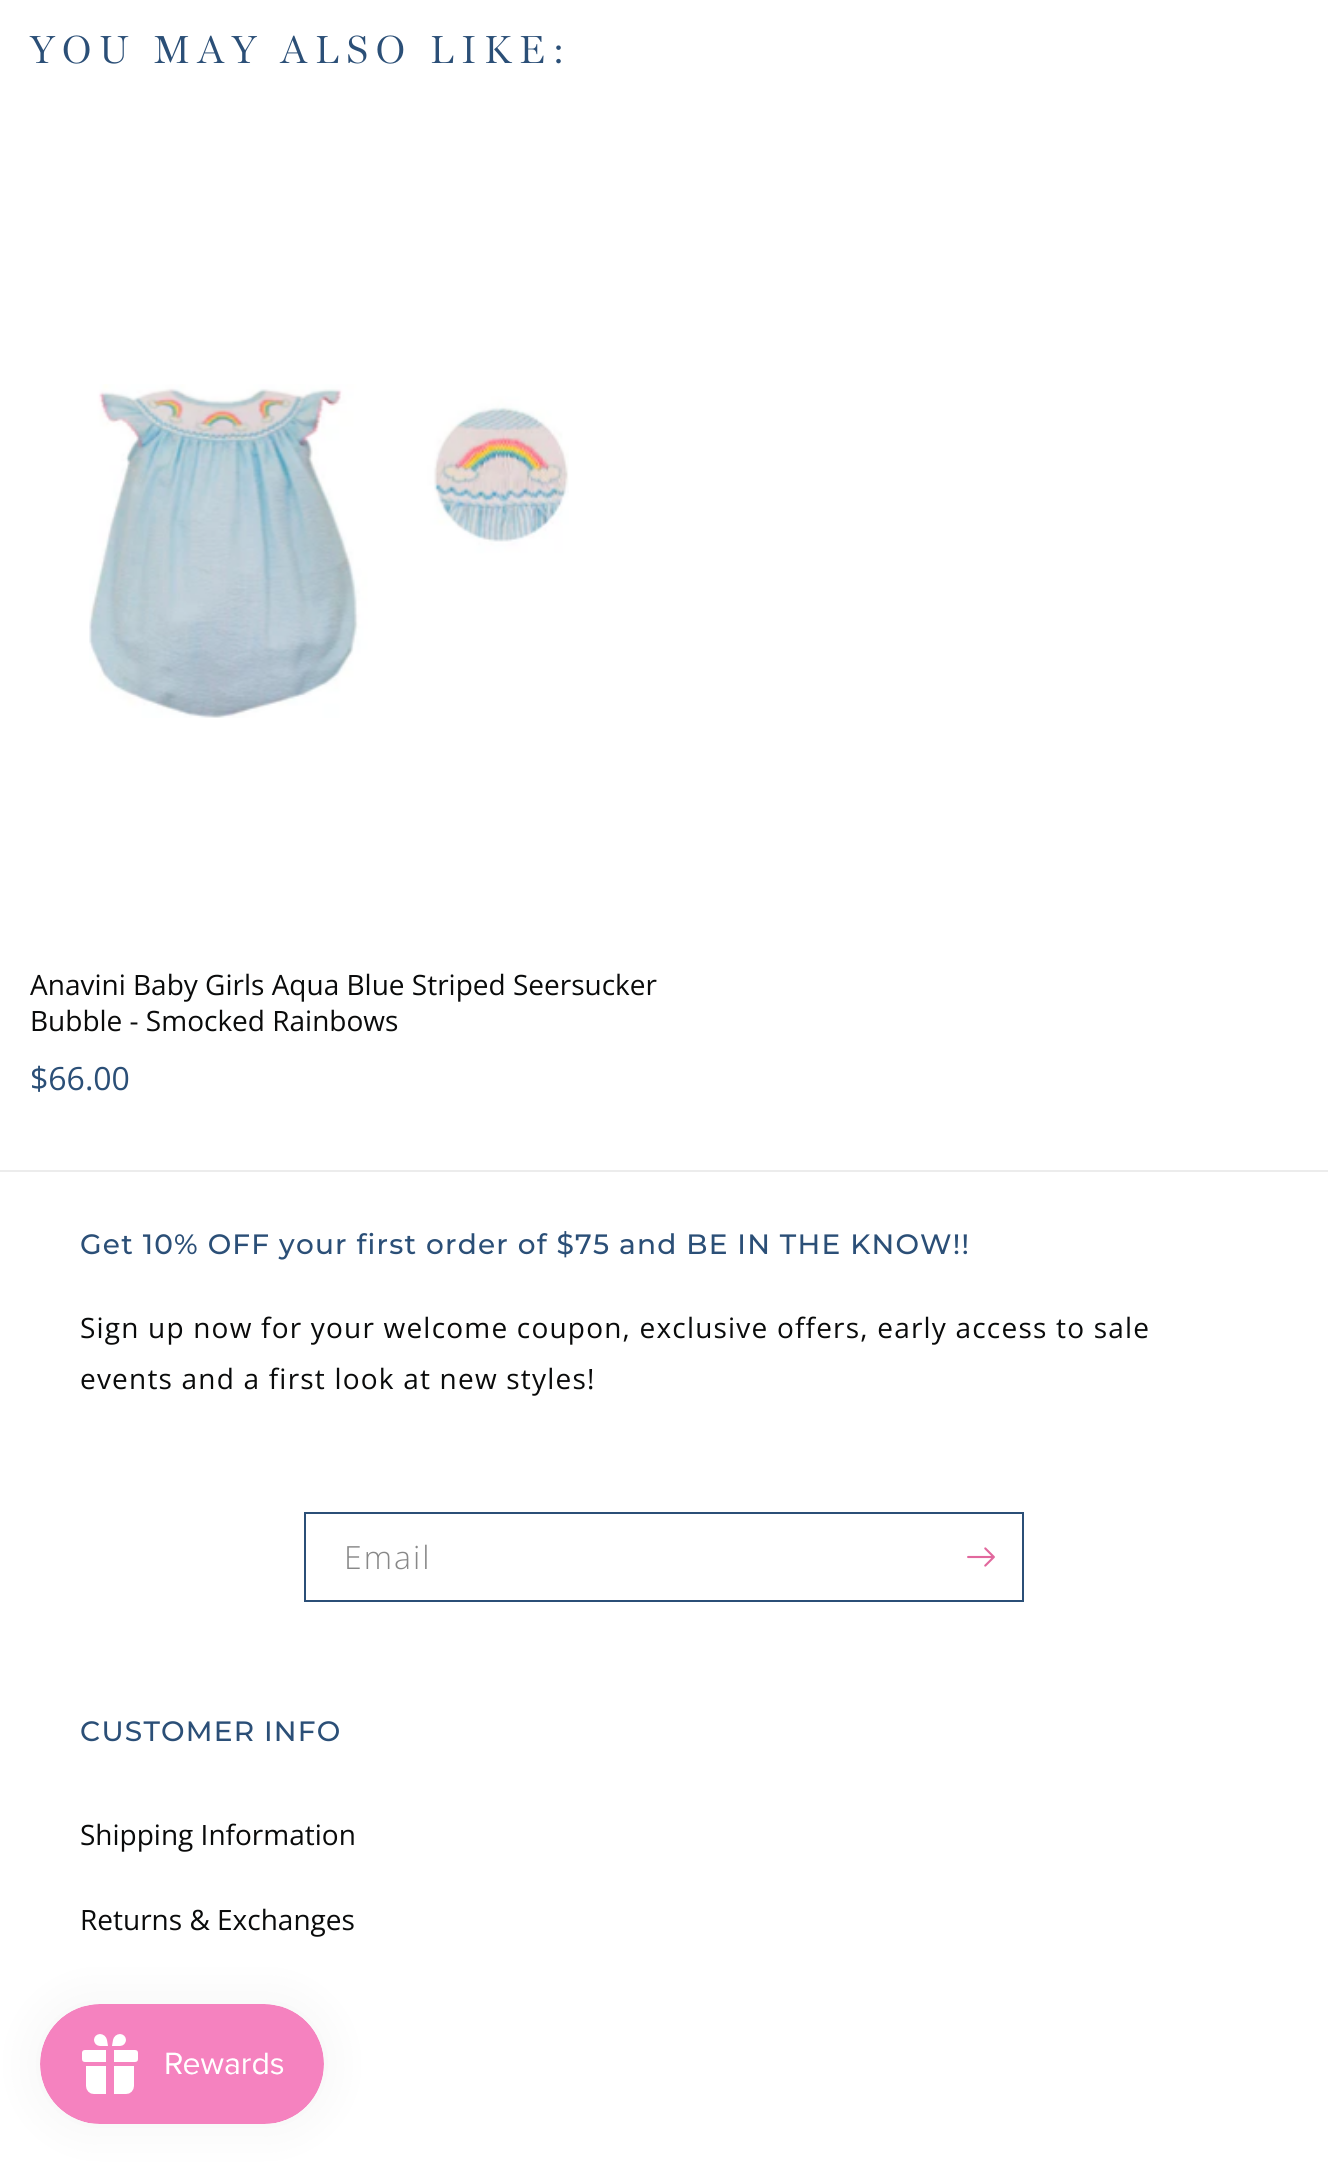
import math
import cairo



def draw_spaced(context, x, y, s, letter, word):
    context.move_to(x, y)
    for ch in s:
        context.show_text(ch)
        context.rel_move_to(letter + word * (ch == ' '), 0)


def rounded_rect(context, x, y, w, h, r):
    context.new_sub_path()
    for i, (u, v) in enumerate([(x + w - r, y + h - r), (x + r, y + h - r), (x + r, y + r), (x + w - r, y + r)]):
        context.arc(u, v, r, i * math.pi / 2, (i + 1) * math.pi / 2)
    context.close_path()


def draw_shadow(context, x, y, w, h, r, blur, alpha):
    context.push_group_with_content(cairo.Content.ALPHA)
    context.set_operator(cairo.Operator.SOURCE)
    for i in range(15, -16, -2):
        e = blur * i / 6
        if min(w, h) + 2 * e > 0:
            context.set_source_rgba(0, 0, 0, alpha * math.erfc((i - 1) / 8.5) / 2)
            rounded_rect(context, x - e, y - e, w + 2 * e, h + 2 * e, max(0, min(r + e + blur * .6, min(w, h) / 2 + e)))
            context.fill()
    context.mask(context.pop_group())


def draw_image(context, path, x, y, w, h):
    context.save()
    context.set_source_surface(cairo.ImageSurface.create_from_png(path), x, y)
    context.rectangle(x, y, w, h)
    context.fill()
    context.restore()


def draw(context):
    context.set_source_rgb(1, 1, 1)
    context.paint()
    draw_image(context, "images/1.png", 89, 384, 480, 334)
    context.set_source_rgb(236 / 255, 236 / 255, 236 / 255)
    context.rectangle(0, 1170, 1328, 2)
    context.fill()
    context.rectangle(305, 1513, 718, 88)
    context.set_source_rgb(43 / 255, 79 / 255, 119 / 255)
    context.stroke()
    draw_image(context, "images/2.png", 967, 1547, 28, 20)
    context.set_source_rgb(0, 0, 0)
    draw_shadow(context, 40, 2004, 284, 120, 60, 25, 0.05)
    draw_image(context, "images/3.png", 40, 2004, 284, 120)
    context.select_font_face("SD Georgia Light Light")
    context.set_font_size(40)
    context.set_source_rgb(43 / 255, 79 / 255, 119 / 255)
    draw_spaced(context, 30, 63, "YOU MAY ALSO LIKE:", 7.25, 0)
    context.select_font_face("Open Sans")
    context.set_font_size(28)
    context.set_source_rgb(10 / 255, 11 / 255, 11 / 255)
    context.move_to(30, 995)
    context.show_text("Anavini Baby Girls Aqua Blue Striped Seersucker")
    context.move_to(30, 1031)
    context.show_text("Bubble - Smocked Rainbows")
    context.set_font_size(32)
    context.set_source_rgb(43 / 255, 79 / 255, 119 / 255)
    context.move_to(30, 1090)
    context.show_text("$66.00")
    context.select_font_face("Montserrat Medium")
    context.set_font_size(28)
    draw_spaced(context, 80, 1254, "Get 10% OFF your first order of $75 and BE IN THE KNOW!!", 1.2, 0)
    context.select_font_face("Open Sans")
    context.set_source_rgb(10 / 255, 11 / 255, 11 / 255)
    draw_spaced(context, 80, 1338, "Sign up now for your welcome coupon, exclusive offers, early access to sale", 1.2, 0)
    draw_spaced(context, 80, 1389, "events and a first look at new styles!", 1.2, 0)
    context.select_font_face("Open Sans Light")
    context.set_font_size(32)
    context.set_source_rgb(136 / 255, 136 / 255, 136 / 255)
    draw_spaced(context, 344, 1569, "Email", 2, 0)
    context.select_font_face("Montserrat Medium")
    context.set_font_size(28)
    context.set_source_rgb(43 / 255, 79 / 255, 119 / 255)
    draw_spaced(context, 80, 1741, "CUSTOMER INFO", 1.2, 0)
    context.select_font_face("Open Sans")
    context.set_source_rgb(10 / 255, 11 / 255, 11 / 255)
    context.move_to(80, 1845)
    context.show_text("Shipping Information")
    context.move_to(80, 1930)
    context.show_text("Returns & Exchanges")


surface = cairo.ImageSurface(cairo.Format.RGB24, 1328, 2164)
context = cairo.Context(surface)
options = cairo.FontOptions()
options.set_hint_metrics(cairo.HintMetrics.OFF)
options.set_hint_style(cairo.HintStyle.NONE)
context.set_font_options(options)
context.set_miter_limit(4)
draw(context)
surface.write_to_png("out.png")
